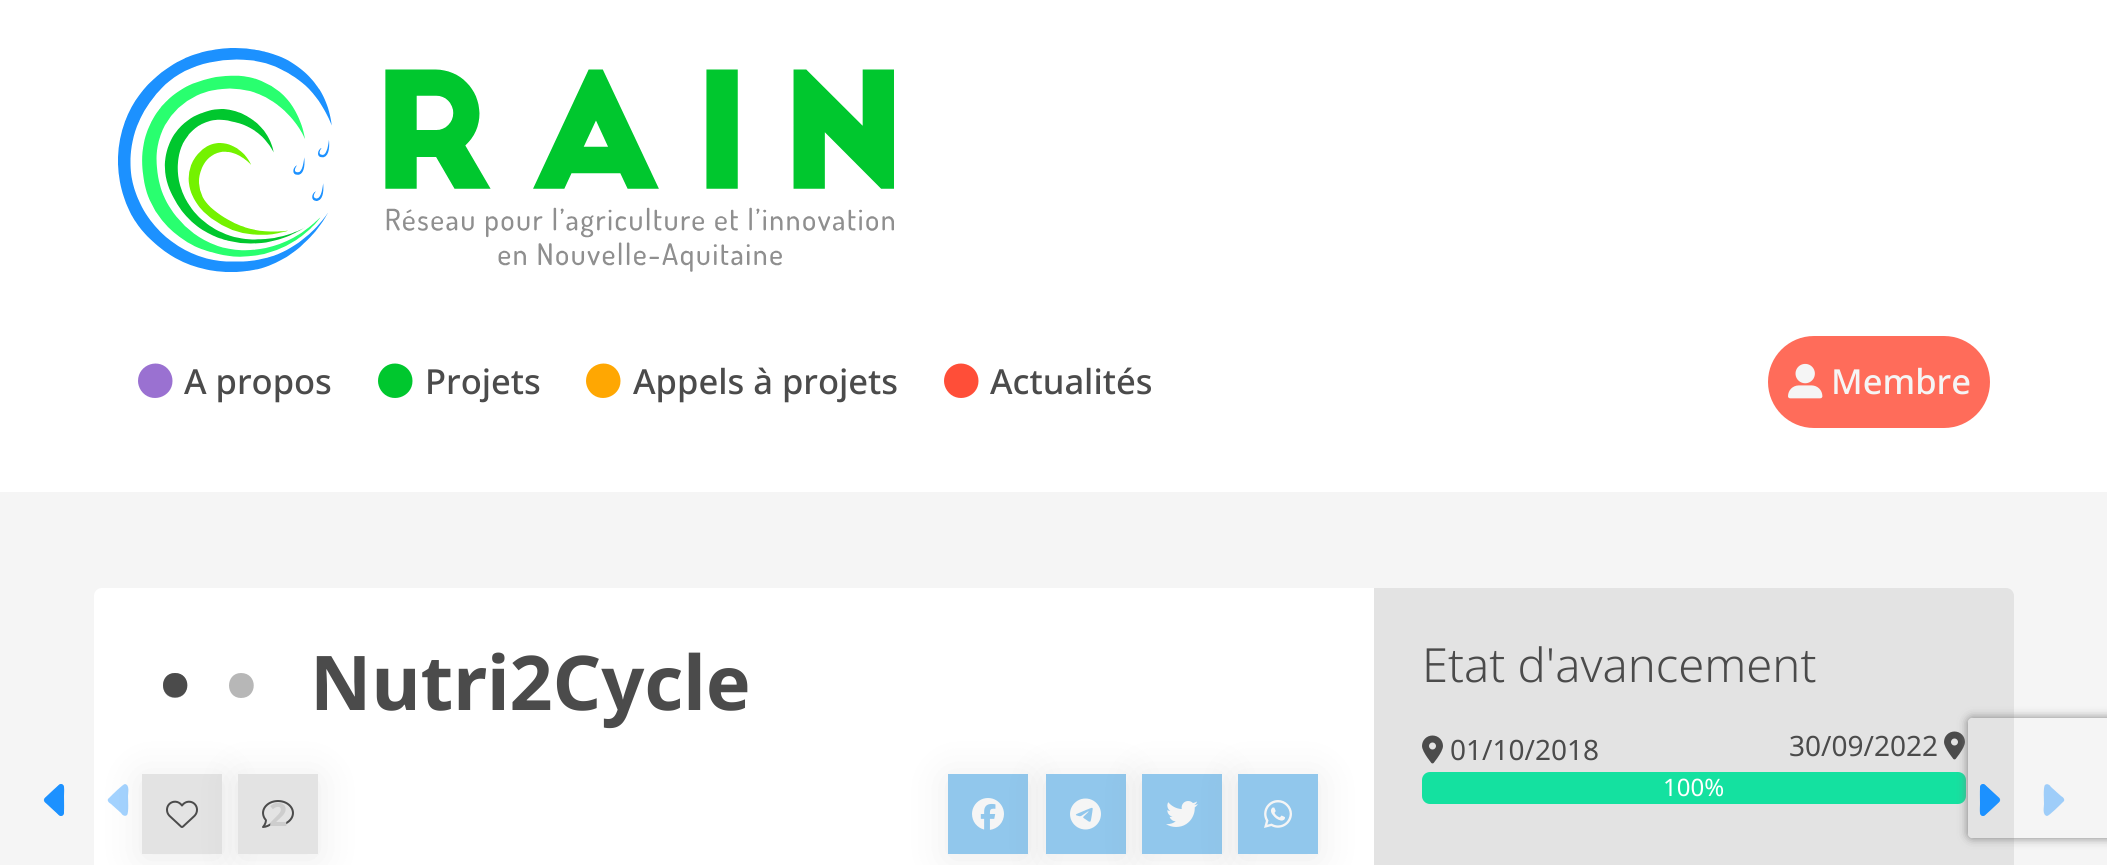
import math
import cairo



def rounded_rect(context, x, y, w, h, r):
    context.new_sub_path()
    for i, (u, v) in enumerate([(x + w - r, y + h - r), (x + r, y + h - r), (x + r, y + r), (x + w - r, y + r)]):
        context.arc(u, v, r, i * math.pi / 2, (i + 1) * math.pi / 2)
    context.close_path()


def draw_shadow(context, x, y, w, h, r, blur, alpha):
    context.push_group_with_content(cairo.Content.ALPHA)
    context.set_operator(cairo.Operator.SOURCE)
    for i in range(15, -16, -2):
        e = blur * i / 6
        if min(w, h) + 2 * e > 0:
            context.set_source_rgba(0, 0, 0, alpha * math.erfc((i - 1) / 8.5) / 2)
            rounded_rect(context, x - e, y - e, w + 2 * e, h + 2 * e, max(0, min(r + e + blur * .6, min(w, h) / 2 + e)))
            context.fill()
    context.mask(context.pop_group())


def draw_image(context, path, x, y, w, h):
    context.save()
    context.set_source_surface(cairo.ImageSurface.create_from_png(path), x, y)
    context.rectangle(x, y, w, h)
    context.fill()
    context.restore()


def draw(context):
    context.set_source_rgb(1, 1, 1)
    context.paint()
    draw_image(context, "images/1.png", 118, 48, 776, 224)
    context.set_source_rgb(154 / 255, 113 / 255, 209 / 255)
    context.new_path()
    context.move_to(138, 381)
    context.curve_to(138, 384, 139, 387.5, 141, 390.5)
    context.curve_to(150.5, 404.5, 172.5, 397.5, 172.5, 381)
    context.curve_to(172.5, 377.5, 171.5, 374, 169.5, 371)
    context.curve_to(160, 357, 138, 364, 138, 381)
    context.close_path()
    context.fill()
    context.set_source_rgb(0, 199 / 255, 46 / 255)
    context.new_path()
    context.move_to(378, 381)
    context.curve_to(378, 384, 379, 387.5, 381, 390.5)
    context.curve_to(390.5, 404.5, 412.5, 397.5, 412.5, 381)
    context.curve_to(412.5, 364, 390.5, 357, 381, 371)
    context.curve_to(379, 374, 378, 377.5, 378, 381)
    context.close_path()
    context.fill()
    context.set_source_rgb(1, 167 / 255, 2 / 255)
    context.new_path()
    context.move_to(586, 381)
    context.curve_to(586, 384, 587, 387.5, 589, 390.5)
    context.curve_to(598.5, 404.5, 620.5, 397.5, 620.5, 381)
    context.curve_to(620.5, 377.5, 619.5, 374, 617.5, 371)
    context.curve_to(608, 357, 586, 364, 586, 381)
    context.close_path()
    context.fill()
    context.set_source_rgb(1, 78 / 255, 56 / 255)
    context.new_path()
    context.move_to(944, 381)
    context.curve_to(944, 384, 945, 387.5, 947, 390.5)
    context.curve_to(956.5, 404.5, 978.5, 397.5, 978.5, 381)
    context.curve_to(978.5, 364, 956.5, 357, 947, 371)
    context.curve_to(945, 374, 944, 377.5, 944, 381)
    context.close_path()
    context.fill()
    context.set_source_rgb(1, 108 / 255, 90 / 255)
    rounded_rect(context, 1770, 338, 218, 88, 44)
    context.fill_preserve()
    context.set_line_width(4)
    context.stroke()
    draw_image(context, "images/2.png", 1788, 363, 35, 36)
    context.set_source_rgb(245 / 255, 245 / 255, 245 / 255)
    context.rectangle(0, 492, 2107, 373)
    context.fill()
    context.set_source_rgb(1, 1, 1)
    context.new_path()
    context.move_to(102, 588)
    context.line_to(1374, 588)
    context.line_to(1374, 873)
    context.line_to(94, 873)
    context.line_to(94, 596)
    context.curve_to(94, 591.5, 97.5, 588, 102, 588)
    context.close_path()
    context.fill()
    context.set_source_rgb(75 / 255, 75 / 255, 75 / 255)
    context.new_path()
    context.move_to(175, 673)
    context.curve_to(159, 673, 159, 697.5, 175, 697.5)
    context.curve_to(191.5, 697.5, 191.5, 673, 175, 673)
    context.close_path()
    context.fill()
    context.set_source_rgba(75 / 255, 75 / 255, 75 / 255, 0.4)
    context.new_path()
    context.move_to(175, 673)
    context.curve_to(159, 673, 159, 698, 175, 698)
    context.curve_to(191, 698, 191, 673, 175, 673)
    context.close_path()
    context.move_to(241, 673)
    context.curve_to(225, 673, 225, 698, 241, 698)
    context.curve_to(258, 698, 258, 673, 241, 673)
    context.close_path()
    context.fill()
    context.set_source_rgb(50 / 255, 50 / 255, 50 / 255)
    draw_shadow(context, 142, 778, 80, 80, 0, 20, 0.1)
    context.set_source_rgb(227 / 255, 227 / 255, 227 / 255)
    context.rectangle(142, 774, 80, 80)
    context.fill()
    draw_image(context, "images/3.png", 166, 800, 32, 28)
    context.set_source_rgb(50 / 255, 50 / 255, 50 / 255)
    draw_shadow(context, 238, 778, 80, 80, 0, 20, 0.1)
    context.set_source_rgb(227 / 255, 227 / 255, 227 / 255)
    context.rectangle(238, 774, 80, 80)
    context.fill()
    draw_image(context, "images/4.png", 262, 800, 32, 28)
    context.set_source_rgb(50 / 255, 50 / 255, 50 / 255)
    draw_shadow(context, 948, 778, 80, 80, 0, 20, 0.1)
    context.set_source_rgb(145 / 255, 199 / 255, 236 / 255)
    context.rectangle(948, 774, 80, 80)
    context.fill()
    draw_image(context, "images/5.png", 972, 798, 32, 32)
    context.set_source_rgb(50 / 255, 50 / 255, 50 / 255)
    draw_shadow(context, 1046, 778, 80, 80, 0, 20, 0.1)
    context.set_source_rgb(145 / 255, 199 / 255, 236 / 255)
    context.rectangle(1046, 774, 80, 80)
    context.fill()
    draw_image(context, "images/6.png", 1070, 798, 31, 32)
    context.set_source_rgb(50 / 255, 50 / 255, 50 / 255)
    draw_shadow(context, 1142, 778, 80, 80, 0, 20, 0.1)
    context.set_source_rgb(145 / 255, 199 / 255, 236 / 255)
    context.rectangle(1142, 774, 80, 80)
    context.fill()
    draw_image(context, "images/7.png", 1166, 801, 32, 26)
    context.set_source_rgb(227 / 255, 227 / 255, 227 / 255)
    context.new_path()
    context.move_to(1374, 588)
    context.line_to(2006, 588)
    context.curve_to(2010.5, 588, 2014, 591.5, 2014, 596)
    context.line_to(2014, 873)
    context.line_to(1374, 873)
    context.close_path()
    context.fill()
    context.set_source_rgb(50 / 255, 50 / 255, 50 / 255)
    draw_shadow(context, 1238, 778, 80, 80, 0, 20, 0.1)
    context.set_source_rgb(145 / 255, 199 / 255, 236 / 255)
    context.rectangle(1238, 774, 80, 80)
    context.fill()
    draw_image(context, "images/8.png", 1264, 800, 28, 28)
    draw_image(context, "images/9.png", 1422, 735, 21, 29)
    draw_image(context, "images/9.png", 1944, 731, 21, 29)
    context.set_source_rgb(20 / 255, 225 / 255, 160 / 255)
    rounded_rect(context, 1422, 772, 544, 32, 8)
    context.fill()
    draw_image(context, "images/10.png", 44, 784, 20, 32)
    context.set_source_rgba(28 / 255, 145 / 255, 1, 0.4)
    context.new_path()
    context.move_to(45, 798)
    context.curve_to(42, 800, 45, 803, 47, 804)
    context.line_to(57, 813)
    context.curve_to(58, 815, 61, 817, 63, 815)
    context.curve_to(65, 813, 64, 799, 64, 796)
    context.curve_to(64, 793, 66, 785, 61, 784)
    context.curve_to(59, 784, 48, 795, 45, 798)
    context.close_path()
    context.move_to(109, 798)
    context.curve_to(106, 800, 109, 803, 111, 804)
    context.line_to(121, 813)
    context.curve_to(122, 815, 125, 817, 127, 815)
    context.curve_to(129, 813, 128, 799, 128, 796)
    context.curve_to(128, 793, 130, 785, 125, 784)
    context.curve_to(123, 784, 112, 795, 109, 798)
    context.close_path()
    context.fill()
    context.save()
    context.set_fill_rule(cairo.FillRule.EVEN_ODD)
    context.new_path()
    context.move_to(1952, 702)
    context.line_to(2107, 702)
    context.line_to(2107, 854)
    context.line_to(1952, 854)
    context.close_path()
    context.move_to(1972, 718)
    context.line_to(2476, 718)
    context.curve_to(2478, 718, 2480, 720, 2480, 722)
    context.line_to(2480, 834)
    context.curve_to(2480, 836, 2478, 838, 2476, 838)
    context.line_to(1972, 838)
    context.curve_to(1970, 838, 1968, 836, 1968, 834)
    context.line_to(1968, 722)
    context.curve_to(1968, 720, 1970, 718, 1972, 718)
    context.close_path()
    context.clip()
    context.set_source_rgb(128 / 255, 128 / 255, 128 / 255)
    draw_shadow(context, 1968, 718, 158, 120, 4, 5, 1)
    context.restore()
    draw_image(context, "images/11.png", 1980, 784, 20, 32)
    context.new_path()
    context.move_to(1999, 802)
    context.curve_to(2002, 800, 1999, 797, 1997, 796)
    context.line_to(1987, 787)
    context.curve_to(1986, 785, 1983, 783, 1981, 785)
    context.curve_to(1979, 787, 1980, 801, 1980, 804)
    context.curve_to(1980, 807, 1978, 815, 1983, 816)
    context.curve_to(1985, 816, 1996, 805, 1999, 802)
    context.close_path()
    context.move_to(2063, 802)
    context.curve_to(2066, 800, 2063, 797, 2061, 796)
    context.line_to(2051, 787)
    context.curve_to(2050, 785, 2047, 783, 2045, 785)
    context.curve_to(2043, 787, 2044, 801, 2044, 804)
    context.curve_to(2044, 807, 2042, 815, 2047, 816)
    context.curve_to(2049, 816, 2060, 805, 2063, 802)
    context.close_path()
    context.fill()
    context.select_font_face("Noto Sans Medium")
    context.set_font_size(34.5)
    context.set_source_rgb(75 / 255, 75 / 255, 75 / 255)
    context.move_to(184, 394)
    context.show_text("A propos")
    context.move_to(425, 394)
    context.show_text("Projets")
    context.move_to(633, 394)
    context.show_text("Appels à projets")
    context.move_to(990, 394)
    context.show_text("Actualités")
    context.set_source_rgb(245 / 255, 245 / 255, 245 / 255)
    context.move_to(1831, 394)
    context.show_text("Membre")
    context.select_font_face("Noto Sans", cairo.FontSlant.NORMAL, cairo.FontWeight.BOLD)
    context.set_font_size(75.5)
    context.set_source_rgb(75 / 255, 75 / 255, 75 / 255)
    context.move_to(310, 710)
    context.show_text("Nutri2Cycle")
    context.select_font_face("Open Sans", cairo.FontSlant.NORMAL, cairo.FontWeight.BOLD)
    context.set_font_size(32)
    context.set_source_rgb(205 / 255, 205 / 255, 205 / 255)
    context.move_to(269, 826)
    context.show_text("2")
    context.select_font_face("Noto Sans Light")
    context.set_font_size(47.1)
    context.set_source_rgb(75 / 255, 75 / 255, 75 / 255)
    context.move_to(1422, 682)
    context.show_text("Etat d'avancement")
    context.select_font_face("Noto Sans")
    context.set_font_size(28)
    context.move_to(1450, 760)
    context.show_text("01/10/2018")
    context.move_to(1789, 756)
    context.show_text("30/09/2022")
    context.set_font_size(24)
    context.set_source_rgb(1, 1, 1)
    context.move_to(1663, 796)
    context.show_text("100%")


surface = cairo.ImageSurface(cairo.Format.RGB24, 2107, 865)
context = cairo.Context(surface)
options = cairo.FontOptions()
options.set_hint_metrics(cairo.HintMetrics.OFF)
options.set_hint_style(cairo.HintStyle.NONE)
context.set_font_options(options)
context.set_miter_limit(4)
draw(context)
surface.write_to_png("out.png")
